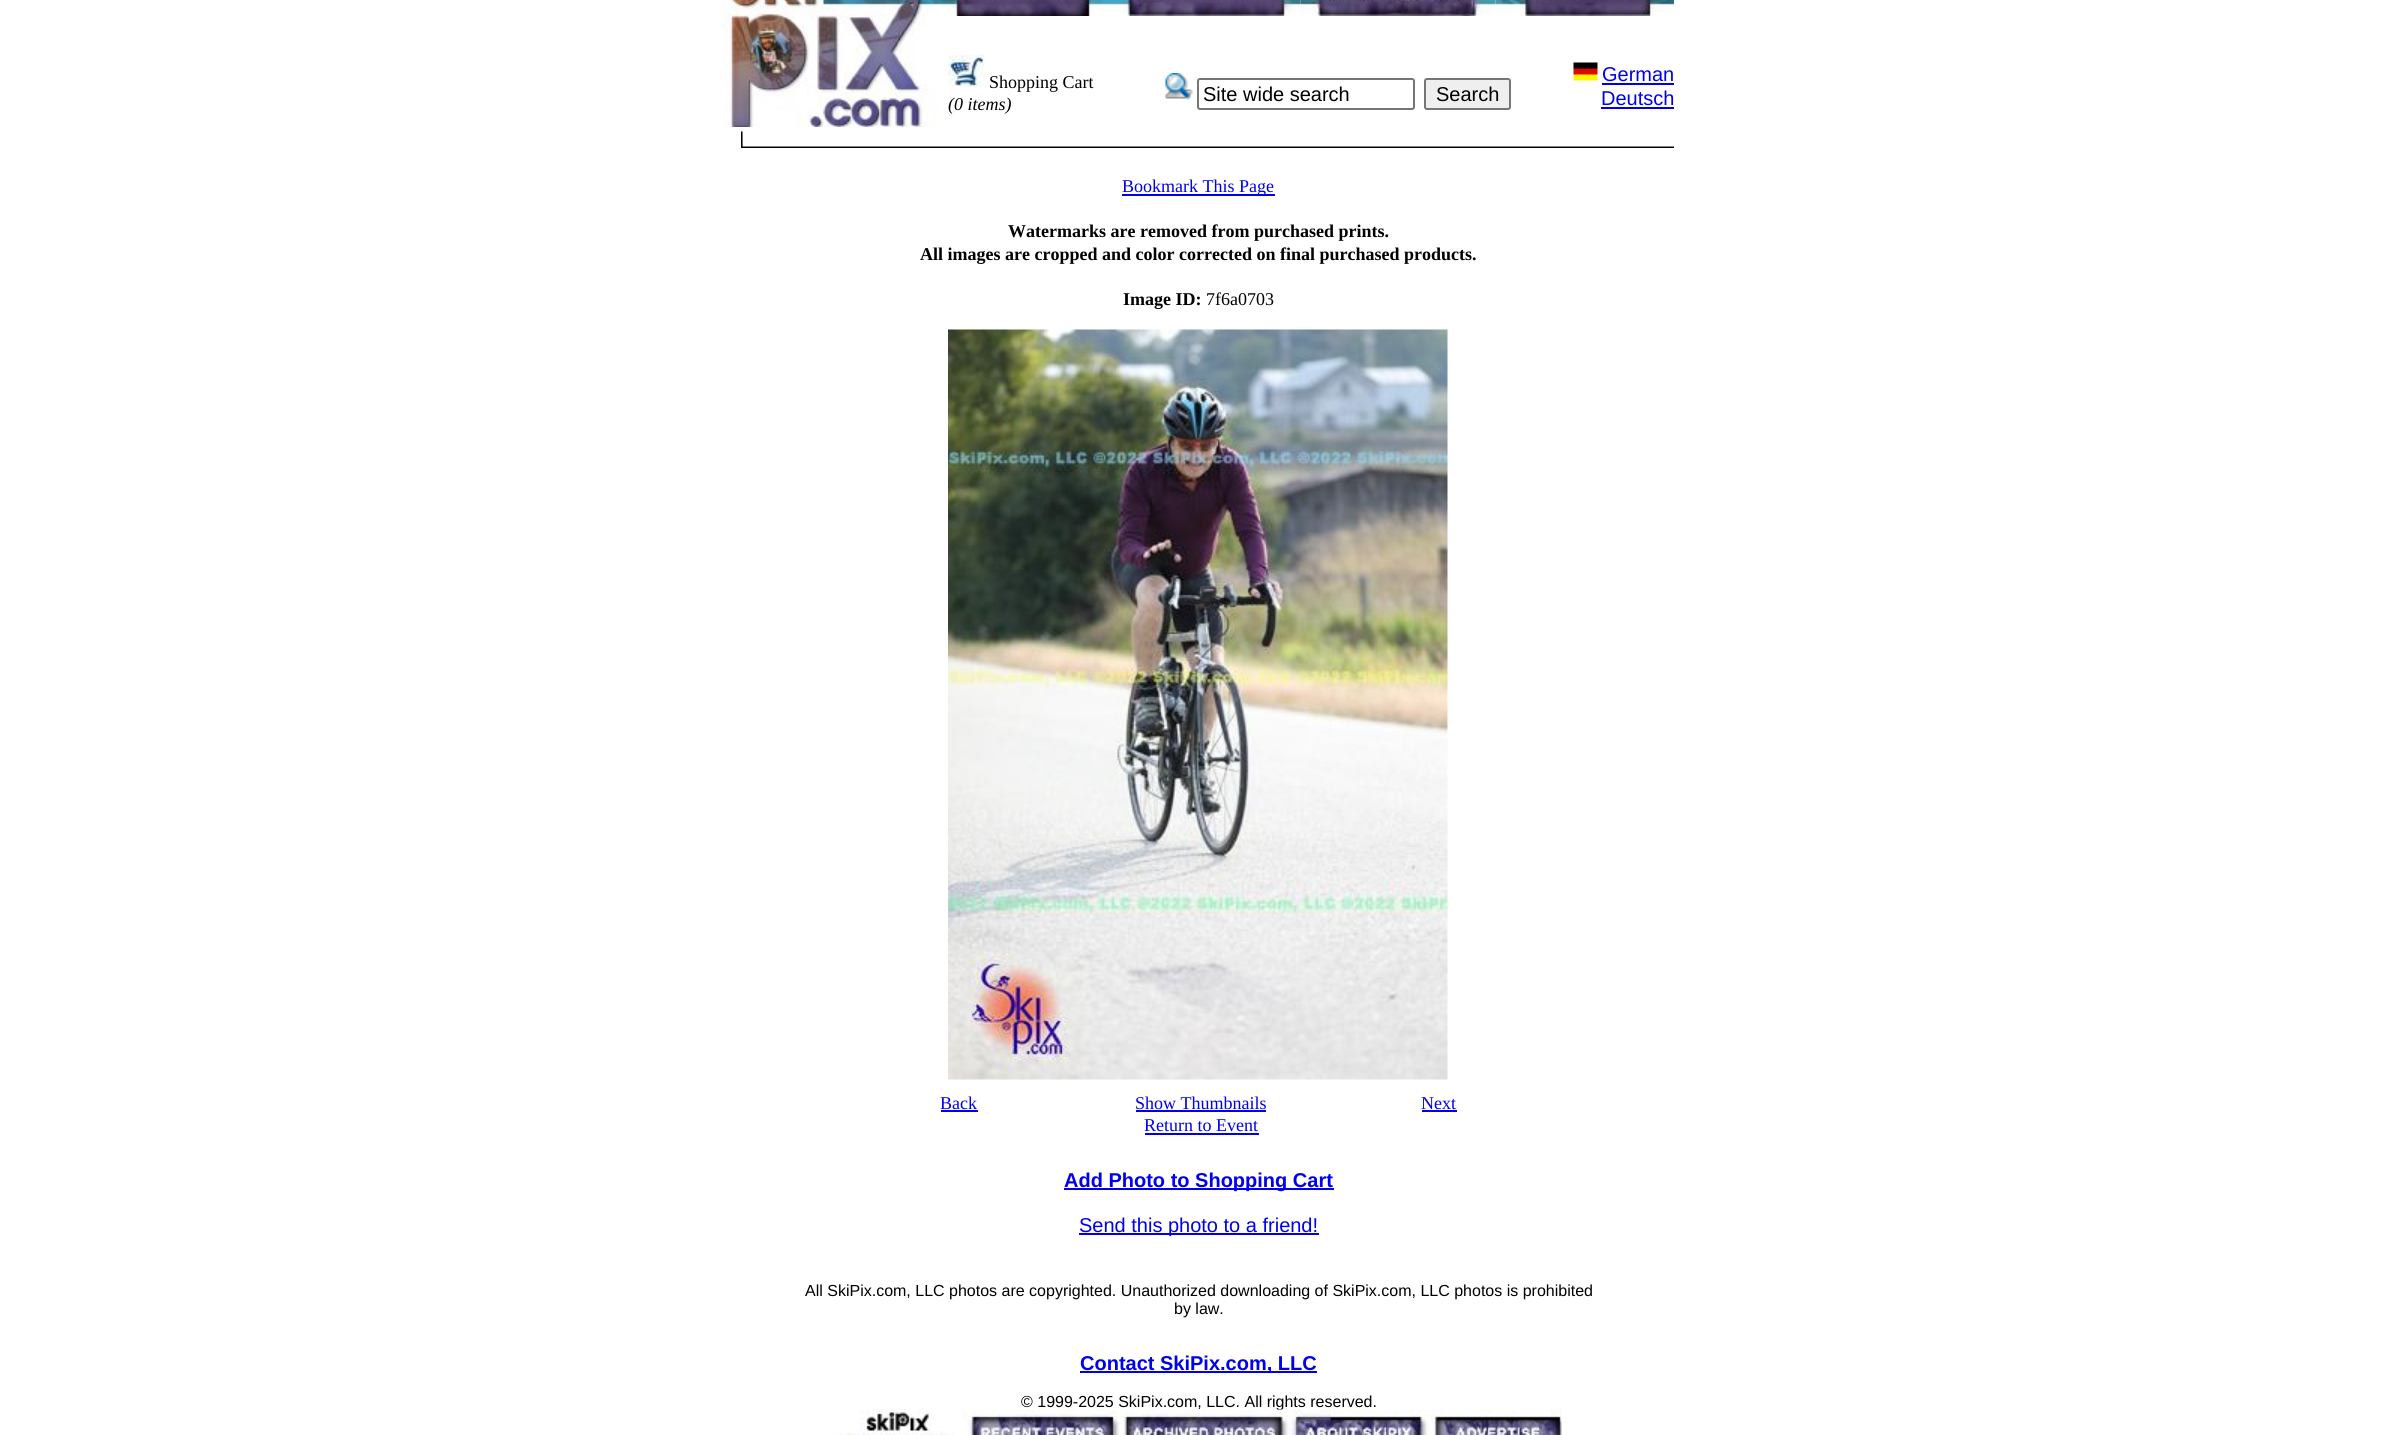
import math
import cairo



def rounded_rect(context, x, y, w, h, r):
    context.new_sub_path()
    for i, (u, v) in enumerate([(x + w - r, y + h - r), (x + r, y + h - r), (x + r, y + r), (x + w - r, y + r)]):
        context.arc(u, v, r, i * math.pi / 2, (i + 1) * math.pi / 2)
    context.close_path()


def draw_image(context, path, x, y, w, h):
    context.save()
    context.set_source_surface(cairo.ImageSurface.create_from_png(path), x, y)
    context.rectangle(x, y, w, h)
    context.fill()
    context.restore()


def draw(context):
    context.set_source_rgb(1, 1, 1)
    context.paint()
    draw_image(context, "images/1.png", 723, 0, 225, 127)
    draw_image(context, "images/2.png", 948, 0, 156, 16)
    draw_image(context, "images/3.png", 1104, 0, 197, 16)
    draw_image(context, "images/4.png", 1300, 0, 196, 16)
    draw_image(context, "images/5.png", 1495, 0, 179, 16)
    draw_image(context, "images/6.png", 948, 55, 36, 32)
    draw_image(context, "images/7.png", 1165, 73, 28, 27)
    rounded_rect(context, 1198, 79, 216, 30, 2)
    context.set_source_rgb(118 / 255, 118 / 255, 118 / 255)
    context.stroke()
    context.set_source_rgb(239 / 255, 239 / 255, 239 / 255)
    rounded_rect(context, 1425, 79, 85, 30, 2)
    context.fill_preserve()
    context.set_source_rgb(118 / 255, 118 / 255, 118 / 255)
    context.stroke()
    draw_image(context, "images/8.png", 1573, 62, 25, 19)
    context.set_source_rgb(0, 0, 238 / 255)
    context.rectangle(1602, 83, 72, 2)
    context.fill()
    context.rectangle(1601, 107, 73, 2)
    context.fill()
    draw_image(context, "images/9.png", 741, 131, 933, 17)
    context.rectangle(1122, 194, 153, 2)
    context.fill()
    draw_image(context, "images/10.png", 948, 329, 500, 751)
    context.rectangle(941, 1110, 37, 2)
    context.fill()
    context.rectangle(1136, 1110, 130, 2)
    context.fill()
    context.rectangle(1145, 1133, 114, 2)
    context.fill()
    context.rectangle(1422, 1110, 35, 2)
    context.fill()
    context.rectangle(1064, 1188, 270, 2)
    context.fill()
    context.rectangle(1079, 1233, 240, 2)
    context.fill()
    context.rectangle(1080, 1371, 237, 2)
    context.fill()
    draw_image(context, "images/11.png", 835, 1409, 120, 26)
    draw_image(context, "images/15.png", 1431, 1409, 131, 26)
    context.select_font_face("Liberation Serif")
    context.set_font_size(18)
    context.set_source_rgb(0, 0, 0)
    context.move_to(989, 88)
    context.show_text("Shopping Cart")
    context.select_font_face("Liberation Serif", cairo.FontSlant.ITALIC)
    context.move_to(948, 110)
    context.show_text("(0 items)")
    context.select_font_face("Liberation Sans")
    context.set_font_size(20)
    context.move_to(1203, 101)
    context.show_text("Site wide search")
    context.move_to(1436, 101)
    context.show_text("Search")
    context.set_source_rgb(0, 0, 238 / 255)
    context.move_to(1602, 81)
    context.show_text("German")
    context.move_to(1601, 105)
    context.show_text("Deutsch")
    context.select_font_face("Liberation Serif")
    context.set_font_size(18)
    context.move_to(1122, 192)
    context.show_text("Bookmark This Page")
    context.select_font_face("Liberation Serif", cairo.FontSlant.NORMAL, cairo.FontWeight.BOLD)
    context.set_source_rgb(0, 0, 0)
    context.move_to(1008, 237)
    context.show_text("Watermarks are removed from purchased prints.")
    context.move_to(920, 260)
    context.show_text("All images are cropped and color corrected on final purchased products.")
    context.move_to(1123, 305)
    context.show_text("Image ID:")
    context.select_font_face("Liberation Serif")
    context.move_to(1206, 305)
    context.show_text("7f6a0703")
    context.set_source_rgb(0, 0, 238 / 255)
    context.move_to(940, 1109)
    context.show_text("Back")
    context.move_to(1135, 1109)
    context.show_text("Show Thumbnails")
    context.move_to(1144, 1131)
    context.show_text("Return to Event")
    context.move_to(1421, 1109)
    context.show_text("Next")
    context.select_font_face("Liberation Sans", cairo.FontSlant.NORMAL, cairo.FontWeight.BOLD)
    context.set_font_size(20)
    context.move_to(1064, 1187)
    context.show_text("Add Photo to Shopping Cart")
    context.select_font_face("Liberation Sans")
    context.move_to(1079, 1232)
    context.show_text("Send this photo to a friend!")
    context.set_font_size(16)
    context.set_source_rgb(0, 0, 0)
    context.move_to(805, 1296)
    context.show_text("All SkiPix.com, LLC photos are copyrighted. Unauthorized downloading of SkiPix.com, LLC photos is prohibited")
    context.move_to(1174, 1314)
    context.show_text("by law.")
    context.select_font_face("Liberation Sans", cairo.FontSlant.NORMAL, cairo.FontWeight.BOLD)
    context.set_font_size(20)
    context.set_source_rgb(0, 0, 238 / 255)
    context.move_to(1080, 1370)
    context.show_text("Contact SkiPix.com, LLC")
    context.select_font_face("Liberation Sans")
    context.set_font_size(16)
    context.set_source_rgb(0, 0, 0)
    context.move_to(1021, 1407)
    context.show_text("© 1999-2025 SkiPix.com, LLC. All rights reserved.")
    draw_image(context, "images/12.png", 963, 1409, 157, 26)
    draw_image(context, "images/13.png", 1122, 1409, 168, 26)
    draw_image(context, "images/14.png", 1290, 1409, 141, 26)


surface = cairo.ImageSurface(cairo.Format.RGB24, 2396, 1435)
context = cairo.Context(surface)
options = cairo.FontOptions()
options.set_hint_metrics(cairo.HintMetrics.OFF)
options.set_hint_style(cairo.HintStyle.NONE)
context.set_font_options(options)
context.set_miter_limit(4)
draw(context)
surface.write_to_png("out.png")
